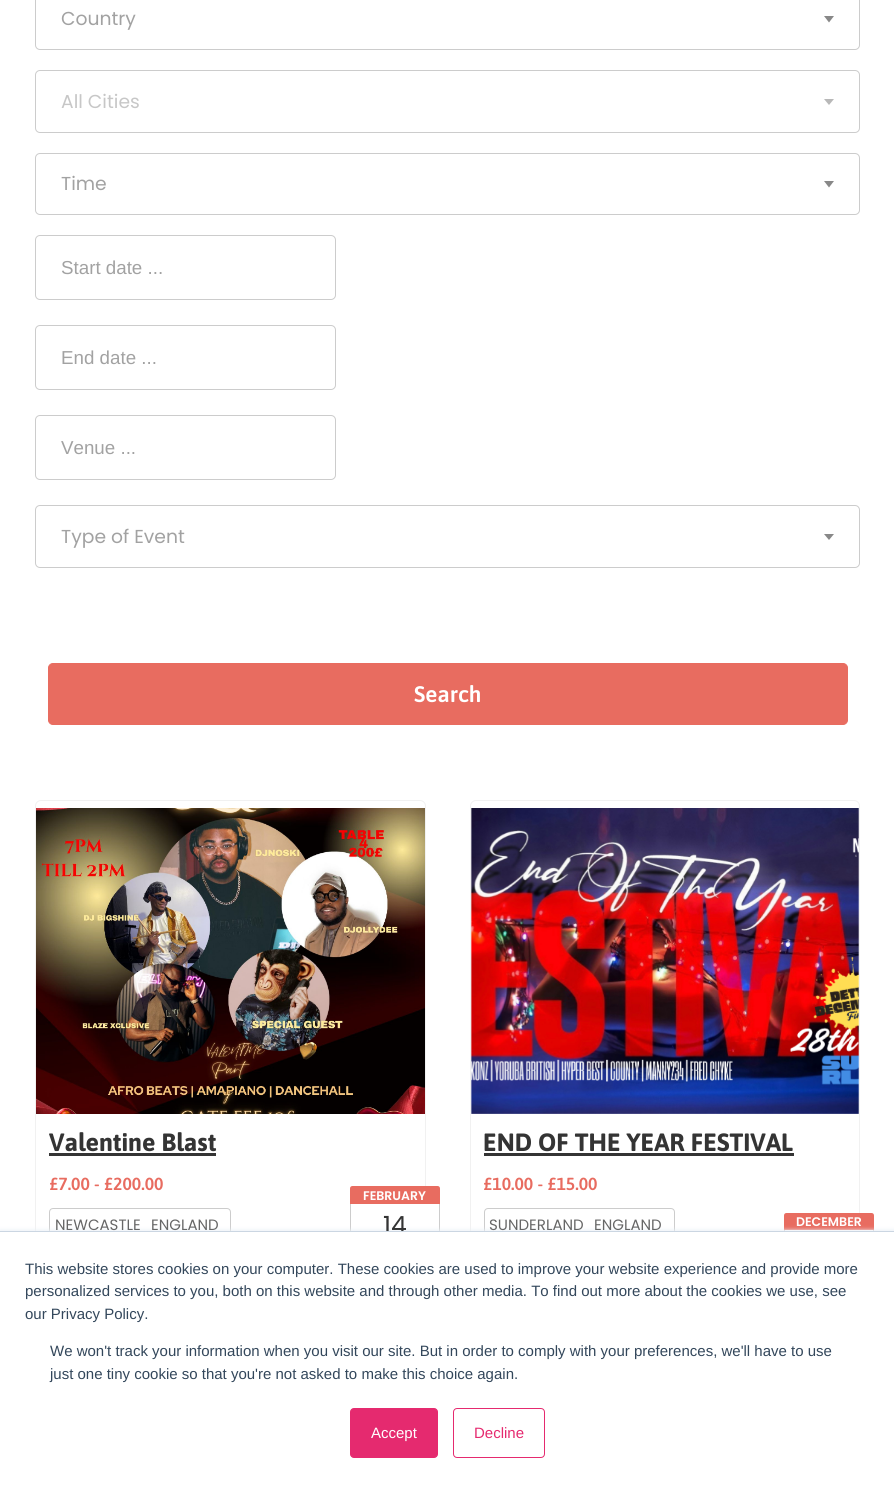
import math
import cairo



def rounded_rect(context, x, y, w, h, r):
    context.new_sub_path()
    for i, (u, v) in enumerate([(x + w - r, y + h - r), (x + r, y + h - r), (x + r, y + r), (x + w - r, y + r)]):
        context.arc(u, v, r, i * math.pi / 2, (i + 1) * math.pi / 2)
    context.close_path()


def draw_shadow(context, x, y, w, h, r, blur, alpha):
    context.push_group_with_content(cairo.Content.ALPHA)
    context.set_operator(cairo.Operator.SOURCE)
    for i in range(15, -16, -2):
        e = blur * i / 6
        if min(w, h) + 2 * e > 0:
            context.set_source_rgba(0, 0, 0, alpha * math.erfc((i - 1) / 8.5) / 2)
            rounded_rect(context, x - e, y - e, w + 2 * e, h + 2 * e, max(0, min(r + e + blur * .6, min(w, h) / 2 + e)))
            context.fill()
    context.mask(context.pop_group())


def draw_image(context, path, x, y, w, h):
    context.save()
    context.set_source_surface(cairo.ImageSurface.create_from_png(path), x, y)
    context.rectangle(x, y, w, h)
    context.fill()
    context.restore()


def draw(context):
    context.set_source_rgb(1, 1, 1)
    context.paint()
    rounded_rect(context, 35.5, -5.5, 824, 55, 4.5)
    context.set_source_rgb(204 / 255, 204 / 255, 204 / 255)
    context.set_line_width(1)
    context.stroke()
    context.set_source_rgb(136 / 255, 136 / 255, 136 / 255)
    context.new_path()
    context.move_to(824, 16)
    context.line_to(834, 16)
    context.line_to(829, 22.5)
    context.close_path()
    context.fill()
    rounded_rect(context, 35.5, 70.5, 824, 62, 4.5)
    context.set_source_rgb(204 / 255, 204 / 255, 204 / 255)
    context.stroke()
    context.set_source_rgb(184 / 255, 184 / 255, 184 / 255)
    context.new_path()
    context.move_to(824, 99)
    context.line_to(834, 99)
    context.line_to(829, 105)
    context.close_path()
    context.fill()
    rounded_rect(context, 35.5, 153.5, 824, 61, 4.5)
    context.set_source_rgb(204 / 255, 204 / 255, 204 / 255)
    context.stroke()
    context.set_source_rgb(136 / 255, 136 / 255, 136 / 255)
    context.new_path()
    context.move_to(824, 181)
    context.line_to(834, 181)
    context.line_to(829, 187.5)
    context.close_path()
    context.fill()
    rounded_rect(context, 35.5, 235.5, 300, 64, 4.5)
    context.set_source_rgb(204 / 255, 204 / 255, 204 / 255)
    context.stroke()
    rounded_rect(context, 35.5, 325.5, 300, 64, 4.5)
    context.stroke()
    rounded_rect(context, 35.5, 415.5, 300, 64, 4.5)
    context.stroke()
    rounded_rect(context, 35.5, 505.5, 824, 62, 4.5)
    context.stroke()
    context.set_source_rgb(136 / 255, 136 / 255, 136 / 255)
    context.new_path()
    context.move_to(824, 534)
    context.line_to(834, 534)
    context.line_to(829, 540)
    context.close_path()
    context.fill()
    context.set_source_rgb(232 / 255, 108 / 255, 96 / 255)
    rounded_rect(context, 48.5, 663.5, 799, 61, 4.5)
    context.fill_preserve()
    context.stroke()
    context.new_path()
    context.move_to(41, 800.5)
    context.line_to(420, 800.5)
    context.curve_to(423, 800.5, 425.5, 803, 425.5, 806)
    context.line_to(425.5, 1283.5)
    context.line_to(35.5, 1283.5)
    context.line_to(35.5, 806)
    context.curve_to(35.5, 803, 38, 800.5, 41, 800.5)
    context.close_path()
    context.set_source_rgb(241 / 255, 241 / 255, 241 / 255)
    context.stroke()
    draw_image(context, "images/1.png", 36, 808, 389, 306)
    context.set_source_rgb(52 / 255, 52 / 255, 52 / 255)
    context.rectangle(49, 1153, 167, 3)
    context.fill()
    rounded_rect(context, 49.5, 1208.5, 181, 32, 3.5)
    context.set_source_rgb(204 / 255, 204 / 255, 204 / 255)
    context.stroke()
    context.set_source_rgb(232 / 255, 108 / 255, 96 / 255)
    context.new_path()
    context.move_to(352.5, 1186)
    context.line_to(437.5, 1186)
    context.curve_to(439, 1186, 440, 1187, 440, 1188.5)
    context.line_to(440, 1204)
    context.line_to(350, 1204)
    context.line_to(350, 1188.5)
    context.curve_to(350, 1187, 351, 1186, 352.5, 1186)
    context.close_path()
    context.fill()
    context.set_source_rgb(1, 1, 1)
    context.rectangle(425, 1204, 1, 27)
    context.fill()
    context.set_source_rgb(204 / 255, 204 / 255, 204 / 255)
    context.rectangle(439, 1204, 1, 27)
    context.fill()
    context.rectangle(350, 1204, 1, 27)
    context.fill()
    context.new_path()
    context.move_to(476, 800.5)
    context.line_to(854, 800.5)
    context.curve_to(857, 800.5, 859.5, 803, 859.5, 806)
    context.line_to(859.5, 1309.5)
    context.line_to(470.5, 1309.5)
    context.line_to(470.5, 806)
    context.curve_to(470.5, 803, 473, 800.5, 476, 800.5)
    context.close_path()
    context.set_source_rgb(241 / 255, 241 / 255, 241 / 255)
    context.stroke()
    draw_image(context, "images/2.png", 471, 808, 388, 306)
    context.set_source_rgb(52 / 255, 52 / 255, 52 / 255)
    context.rectangle(484, 1153, 310, 3)
    context.fill()
    rounded_rect(context, 484.5, 1208.5, 190, 32, 3.5)
    context.set_source_rgb(204 / 255, 204 / 255, 204 / 255)
    context.stroke()
    context.set_source_rgb(232 / 255, 108 / 255, 96 / 255)
    context.new_path()
    context.move_to(786.5, 1213)
    context.line_to(871.5, 1213)
    context.curve_to(873, 1213, 874, 1214, 874, 1215.5)
    context.line_to(874, 1230)
    context.line_to(784, 1230)
    context.line_to(784, 1215.5)
    context.curve_to(784, 1214, 785, 1213, 786.5, 1213)
    context.close_path()
    context.fill()
    context.set_source_rgb(1, 1, 1)
    context.rectangle(859, 1230, 1, 1)
    context.fill()
    context.set_source_rgb(204 / 255, 204 / 255, 204 / 255)
    context.rectangle(873, 1230, 1, 1)
    context.fill()
    context.rectangle(784, 1230, 1, 1)
    context.fill()
    context.set_source_rgb(234 / 255, 240 / 255, 246 / 255)
    draw_shadow(context, 0, 1230, 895, 259, 0, 2, 1)
    context.select_font_face("Poppins")
    context.set_font_size(18.75)
    context.set_source_rgb(162 / 255, 162 / 255, 162 / 255)
    context.move_to(61, 25)
    context.show_text("Country")
    context.set_source_rgb(199 / 255, 199 / 255, 199 / 255)
    context.move_to(61, 108)
    context.show_text("All Cities")
    context.set_source_rgb(162 / 255, 162 / 255, 162 / 255)
    context.move_to(61, 190)
    context.show_text("Time")
    context.select_font_face("Liberation Sans")
    context.move_to(61, 274)
    context.show_text("Start date ...")
    context.move_to(61, 364)
    context.show_text("End date ...")
    context.move_to(61, 454)
    context.show_text("Venue ...")
    context.select_font_face("Poppins")
    context.move_to(61, 543)
    context.show_text("Type of Event")
    context.select_font_face("Asap SemiBold")
    context.set_font_size(22.5)
    context.set_source_rgb(1, 1, 1)
    context.move_to(414, 702)
    context.show_text("Search")
    context.select_font_face("Asap", cairo.FontSlant.NORMAL, cairo.FontWeight.BOLD)
    context.set_font_size(25)
    context.set_source_rgb(52 / 255, 52 / 255, 52 / 255)
    context.move_to(49, 1151)
    context.show_text("Valentine Blast")
    context.select_font_face("Asap SemiBold")
    context.set_font_size(17.5)
    context.set_source_rgb(232 / 255, 108 / 255, 96 / 255)
    context.move_to(49, 1190)
    context.show_text("£7.00 - £200.00")
    context.select_font_face("Poppins")
    context.set_font_size(15)
    context.set_source_rgb(102 / 255, 102 / 255, 102 / 255)
    context.move_to(55, 1230)
    context.show_text("NEWCASTLE")
    context.move_to(151, 1230)
    context.show_text("ENGLAND")
    context.select_font_face("Poppins SemiBold")
    context.set_font_size(12.5)
    context.set_source_rgb(1, 1, 1)
    context.move_to(363, 1200)
    context.show_text("FEBRUARY")
    context.select_font_face("Poppins")
    context.set_font_size(25)
    context.set_source_rgb(52 / 255, 52 / 255, 52 / 255)
    context.move_to(383, 1234)
    context.show_text("14")
    context.select_font_face("Asap", cairo.FontSlant.NORMAL, cairo.FontWeight.BOLD)
    context.move_to(483, 1151)
    context.show_text("END OF THE YEAR FESTIVAL")
    context.select_font_face("Asap SemiBold")
    context.set_font_size(17.5)
    context.set_source_rgb(232 / 255, 108 / 255, 96 / 255)
    context.move_to(483, 1190)
    context.show_text("£10.00 - £15.00")
    context.select_font_face("Poppins")
    context.set_font_size(15)
    context.set_source_rgb(102 / 255, 102 / 255, 102 / 255)
    context.move_to(489, 1230)
    context.show_text("SUNDERLAND")
    context.move_to(594, 1230)
    context.show_text("ENGLAND")
    context.select_font_face("Poppins SemiBold")
    context.set_font_size(12.5)
    context.set_source_rgb(1, 1, 1)
    context.move_to(796, 1226)
    context.show_text("DECEMBER")
    context.rectangle(0, 1232, 894, 258)
    context.fill()
    context.set_source_rgb(203 / 255, 214 / 255, 226 / 255)
    context.rectangle(0, 1231, 894, 1)
    context.fill()
    context.select_font_face("Liberation Sans")
    context.set_font_size(15)
    context.set_source_rgb(51 / 255, 71 / 255, 91 / 255)
    context.move_to(25, 1274)
    context.show_text("This website stores cookies on your computer. These cookies are used to improve your website experience and provide more")
    context.move_to(25, 1296)
    context.show_text("personalized services to you, both on this website and through other media. To find out more about the cookies we use, see")
    context.move_to(25, 1319)
    context.show_text("our Privacy Policy.")
    context.move_to(50, 1356)
    context.show_text("We won't track your information when you visit our site. But in order to comply with your preferences, we'll have to use")
    context.move_to(50, 1379)
    context.show_text("just one tiny cookie so that you're not asked to make this choice again.")
    context.set_source_rgb(229 / 255, 42 / 255, 111 / 255)
    rounded_rect(context, 350.5, 1408.5, 87, 49, 3.5)
    context.fill_preserve()
    context.stroke()
    context.set_source_rgb(1, 1, 1)
    context.move_to(371, 1438)
    context.show_text("Accept")
    rounded_rect(context, 453.5, 1408.5, 91, 49, 3.5)
    context.set_source_rgb(229 / 255, 42 / 255, 111 / 255)
    context.stroke()
    context.move_to(474, 1438)
    context.show_text("Decline")


surface = cairo.ImageSurface(cairo.Format.RGB24, 894, 1490)
context = cairo.Context(surface)
options = cairo.FontOptions()
options.set_hint_metrics(cairo.HintMetrics.OFF)
options.set_hint_style(cairo.HintStyle.NONE)
context.set_font_options(options)
context.set_miter_limit(4)
draw(context)
surface.write_to_png("out.png")
